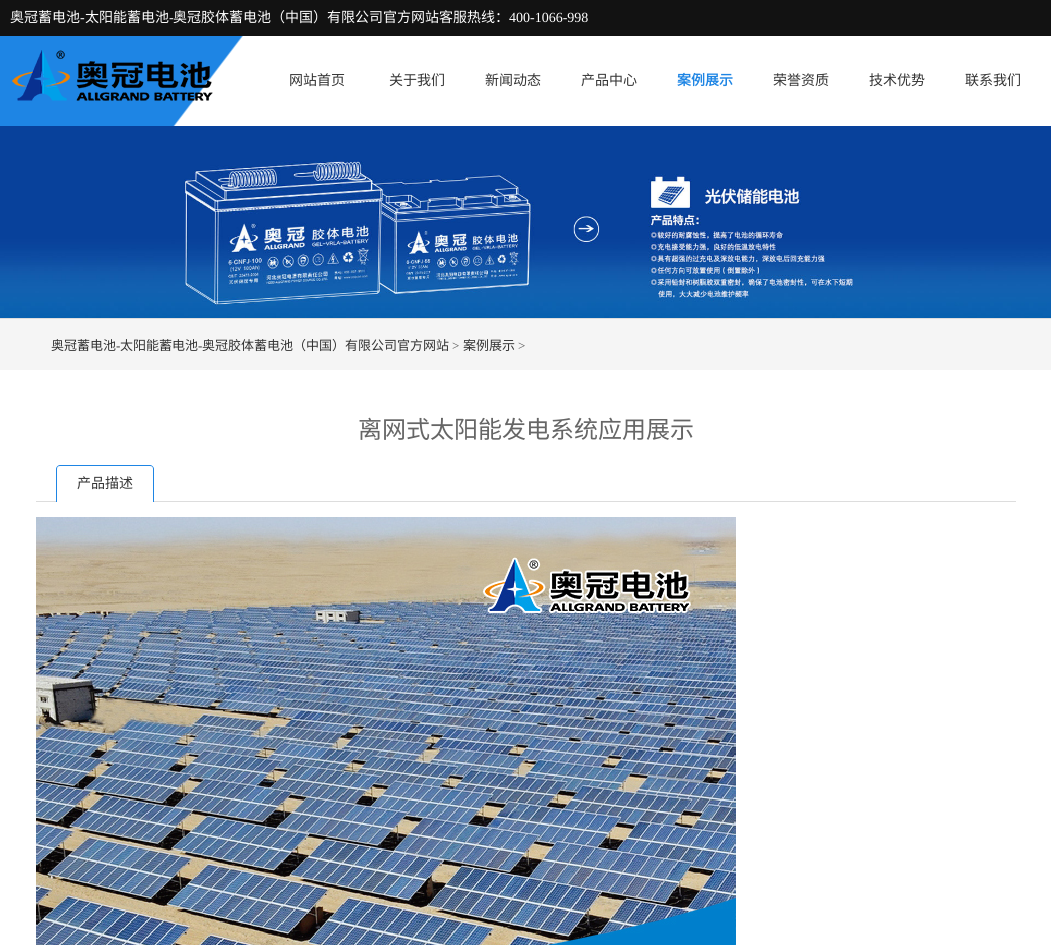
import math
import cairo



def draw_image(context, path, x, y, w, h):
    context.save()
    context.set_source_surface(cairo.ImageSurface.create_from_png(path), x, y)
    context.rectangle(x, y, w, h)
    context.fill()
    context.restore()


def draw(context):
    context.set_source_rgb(1, 1, 1)
    context.paint()
    context.set_source_rgb(18 / 255, 18 / 255, 18 / 255)
    context.rectangle(0, 0, 1051, 36)
    context.fill()
    draw_image(context, "images/1.png", 0, 36, 243, 90)
    draw_image(context, "images/2.png", 12, 50, 201, 51)
    draw_image(context, "images/3.png", 0, 126, 1051, 192)
    context.set_source_rgb(245 / 255, 245 / 255, 245 / 255)
    context.rectangle(0, 319, 1051, 51)
    context.fill()
    context.set_source_rgb(221 / 255, 221 / 255, 221 / 255)
    context.rectangle(0, 318, 1051, 1)
    context.fill()
    context.rectangle(36, 501, 980, 1)
    context.fill()
    context.set_source_rgb(1, 1, 1)
    context.rectangle(56, 501, 98, 1)
    context.fill()
    context.set_source_rgb(30 / 255, 133 / 255, 228 / 255)
    context.set_fill_rule(cairo.FillRule.EVEN_ODD)
    context.new_path()
    context.move_to(60, 465)
    context.line_to(150, 465)
    context.curve_to(152, 465, 154, 467, 154, 469)
    context.line_to(154, 502)
    context.line_to(56, 502)
    context.line_to(56, 469)
    context.curve_to(56, 467, 58, 465, 60, 465)
    context.close_path()
    context.move_to(60, 466)
    context.line_to(150, 466)
    context.curve_to(152, 466, 153, 467, 153, 469)
    context.line_to(153, 502)
    context.line_to(57, 502)
    context.line_to(57, 469)
    context.curve_to(57, 467, 58, 466, 60, 466)
    context.close_path()
    context.fill()
    draw_image(context, "images/4.png", 36, 517, 700, 428)
    context.select_font_face("Noto Sans CJK SC")
    context.set_font_size(14)
    context.set_source_rgb(1, 1, 1)
    context.move_to(10, 22)
    context.show_text("奥冠蓄电池")
    context.select_font_face("Liberation Serif")
    context.move_to(80, 22)
    context.show_text("-")
    context.select_font_face("Noto Sans CJK SC")
    context.move_to(85, 22)
    context.show_text("太阳能蓄电池")
    context.select_font_face("Liberation Serif")
    context.move_to(169, 22)
    context.show_text("-")
    context.select_font_face("Noto Sans CJK SC")
    context.move_to(173, 22)
    context.show_text("奥冠胶体蓄电池（中国）有限公司官方网站客服热线：")
    context.select_font_face("Liberation Serif")
    context.move_to(509, 22)
    context.show_text("400-1066-998")
    context.select_font_face("Noto Sans CJK SC")
    context.set_source_rgb(51 / 255, 51 / 255, 51 / 255)
    context.move_to(289, 85)
    context.show_text("网站首页")
    context.move_to(389, 85)
    context.show_text("关于我们")
    context.move_to(485, 85)
    context.show_text("新闻动态")
    context.move_to(581, 85)
    context.show_text("产品中心")
    context.select_font_face("Noto Sans CJK SC", cairo.FontSlant.NORMAL, cairo.FontWeight.BOLD)
    context.set_source_rgb(30 / 255, 133 / 255, 228 / 255)
    context.move_to(677, 85)
    context.show_text("案例展示")
    context.select_font_face("Noto Sans CJK SC")
    context.set_source_rgb(51 / 255, 51 / 255, 51 / 255)
    context.move_to(773, 85)
    context.show_text("荣誉资质")
    context.move_to(869, 85)
    context.show_text("技术优势")
    context.move_to(965, 85)
    context.show_text("联系我们")
    context.set_font_size(13)
    context.move_to(51, 350)
    context.show_text("奥冠蓄电池")
    context.select_font_face("Liberation Serif")
    context.move_to(116, 350)
    context.show_text("-")
    context.select_font_face("Noto Sans CJK SC")
    context.move_to(120, 350)
    context.show_text("太阳能蓄电池")
    context.select_font_face("Liberation Serif")
    context.move_to(198, 350)
    context.show_text("-")
    context.select_font_face("Noto Sans CJK SC")
    context.move_to(202, 350)
    context.show_text("奥冠胶体蓄电池（中国）有限公司官方网站")
    context.select_font_face("Liberation Serif")
    context.set_source_rgb(85 / 255, 85 / 255, 85 / 255)
    context.move_to(452, 350)
    context.show_text(">")
    context.select_font_face("Noto Sans CJK SC")
    context.set_source_rgb(51 / 255, 51 / 255, 51 / 255)
    context.move_to(463, 350)
    context.show_text("案例展示")
    context.select_font_face("Liberation Serif")
    context.set_source_rgb(85 / 255, 85 / 255, 85 / 255)
    context.move_to(518, 350)
    context.show_text(">")
    context.select_font_face("Noto Sans CJK SC")
    context.set_font_size(24)
    context.set_source_rgb(102 / 255, 102 / 255, 102 / 255)
    context.move_to(358, 438)
    context.show_text("离网式太阳能发电系统应用展示")
    context.set_font_size(14)
    context.set_source_rgb(51 / 255, 51 / 255, 51 / 255)
    context.move_to(77, 488)
    context.show_text("产品描述")


surface = cairo.ImageSurface(cairo.Format.RGB24, 1051, 945)
context = cairo.Context(surface)
options = cairo.FontOptions()
options.set_hint_metrics(cairo.HintMetrics.OFF)
options.set_hint_style(cairo.HintStyle.NONE)
context.set_font_options(options)
context.set_miter_limit(4)
draw(context)
surface.write_to_png("out.png")
